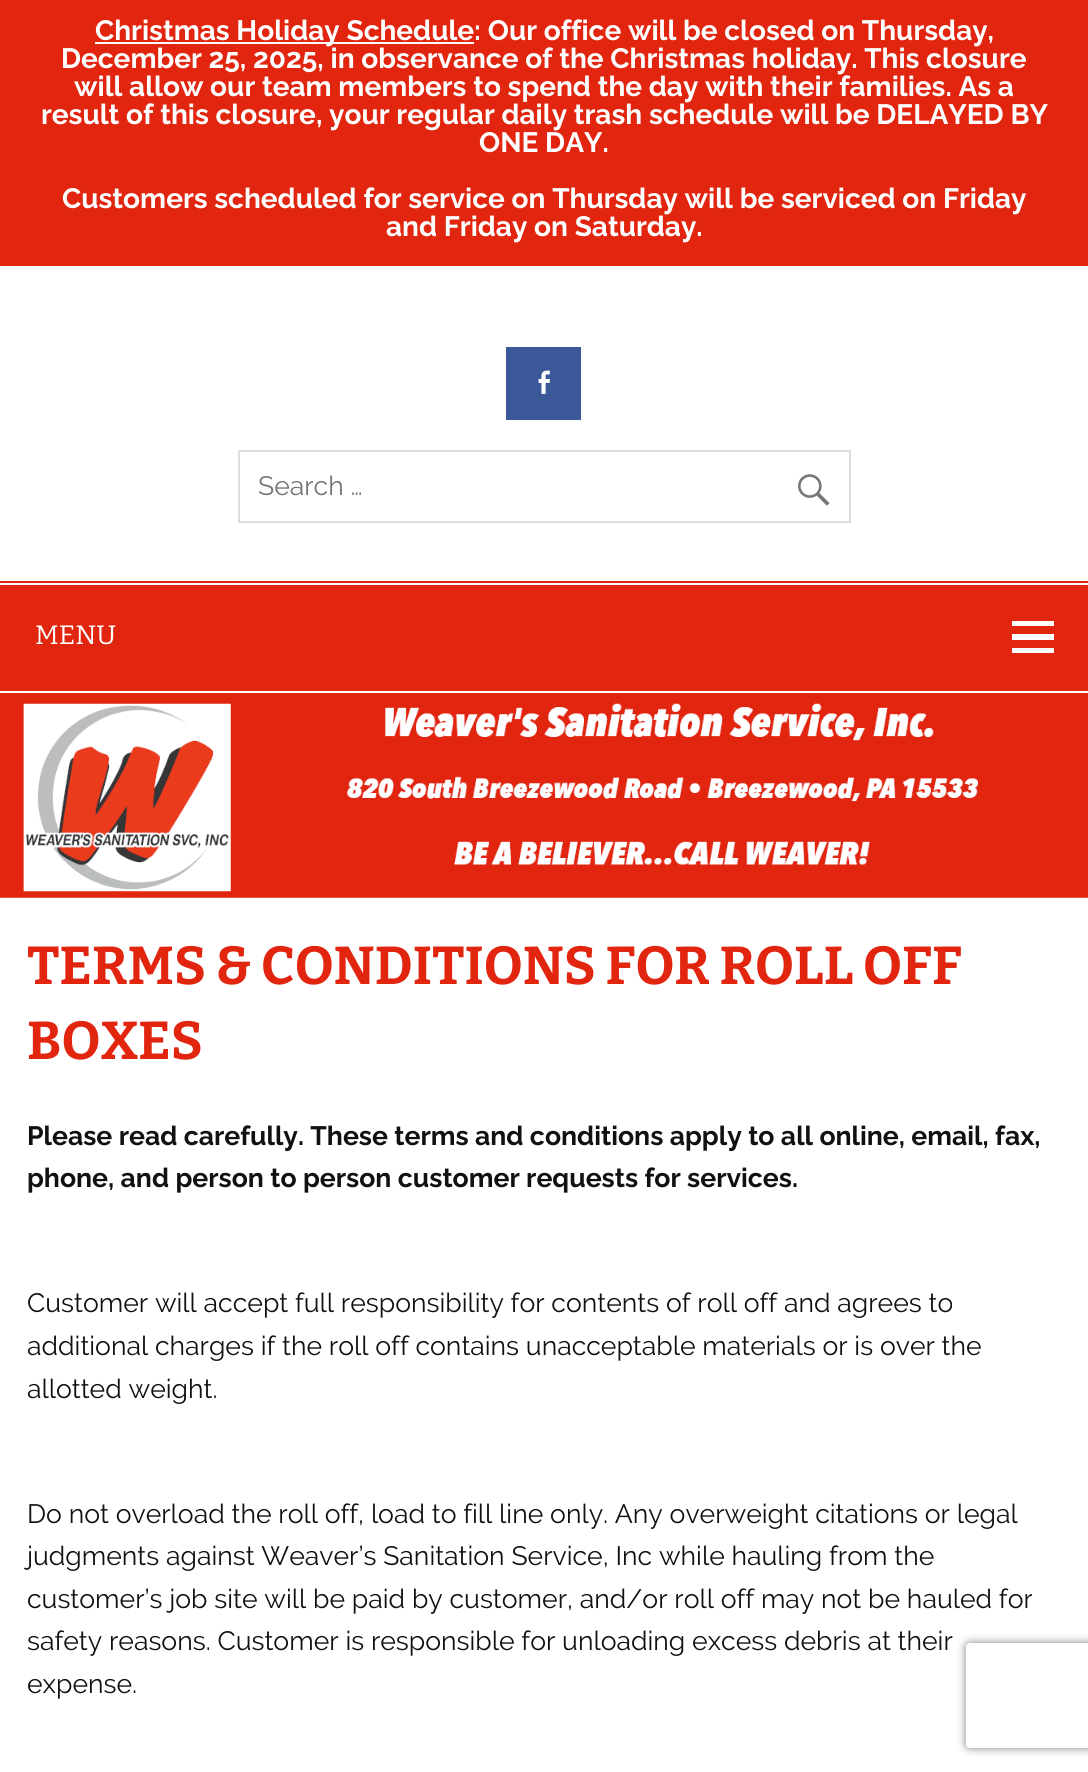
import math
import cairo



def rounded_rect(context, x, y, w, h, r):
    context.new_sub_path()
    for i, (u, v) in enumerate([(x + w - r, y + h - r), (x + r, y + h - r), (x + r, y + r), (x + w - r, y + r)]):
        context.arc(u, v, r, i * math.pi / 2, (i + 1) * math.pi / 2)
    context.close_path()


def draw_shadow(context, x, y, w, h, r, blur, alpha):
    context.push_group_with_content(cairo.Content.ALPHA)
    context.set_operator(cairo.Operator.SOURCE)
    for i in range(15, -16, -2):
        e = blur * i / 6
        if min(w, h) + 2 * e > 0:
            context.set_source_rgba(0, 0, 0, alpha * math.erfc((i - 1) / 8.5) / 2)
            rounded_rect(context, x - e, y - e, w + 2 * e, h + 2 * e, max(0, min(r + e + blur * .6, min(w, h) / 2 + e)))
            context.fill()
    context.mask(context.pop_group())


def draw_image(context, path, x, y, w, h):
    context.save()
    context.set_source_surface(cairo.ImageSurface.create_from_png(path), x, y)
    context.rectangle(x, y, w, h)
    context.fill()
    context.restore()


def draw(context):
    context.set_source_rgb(1, 1, 1)
    context.paint()
    context.set_source_rgb(225 / 255, 37 / 255, 14 / 255)
    context.rectangle(0, 0, 1088, 266)
    context.fill()
    context.set_source_rgb(1, 1, 1)
    context.rectangle(95, 42, 379, 2)
    context.fill()
    context.set_source_rgb(59 / 255, 89 / 255, 152 / 255)
    context.rectangle(506, 347, 75, 73)
    context.fill()
    draw_image(context, "images/1.png", 538, 370, 12, 24)
    context.rectangle(239, 451, 611, 71)
    context.set_source_rgb(221 / 255, 221 / 255, 221 / 255)
    context.stroke()
    draw_image(context, "images/2.png", 798, 474, 32, 32)
    context.set_source_rgb(225 / 255, 37 / 255, 14 / 255)
    context.rectangle(0, 581, 1088, 2)
    context.fill()
    context.rectangle(0, 693, 1088, 2)
    context.fill()
    context.rectangle(0, 585, 1088, 106)
    context.fill()
    context.set_source_rgb(1, 1, 1)
    context.new_path()
    context.move_to(1012, 653)
    context.line_to(1012, 648)
    context.line_to(1054, 648)
    context.line_to(1054, 653)
    context.close_path()
    context.move_to(1012, 621)
    context.line_to(1054, 621)
    context.line_to(1054, 626)
    context.line_to(1012, 626)
    context.close_path()
    context.move_to(1012, 640)
    context.line_to(1012, 634)
    context.line_to(1054, 634)
    context.line_to(1054, 640)
    context.close_path()
    context.fill()
    draw_image(context, "images/3.png", 0, 695, 1088, 203)
    context.save()
    context.set_fill_rule(cairo.FillRule.EVEN_ODD)
    context.new_path()
    context.move_to(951, 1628)
    context.line_to(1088, 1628)
    context.line_to(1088, 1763)
    context.line_to(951, 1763)
    context.close_path()
    context.move_to(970, 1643)
    context.line_to(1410, 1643)
    context.curve_to(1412, 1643, 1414, 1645, 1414, 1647)
    context.line_to(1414, 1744)
    context.curve_to(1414, 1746, 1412, 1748, 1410, 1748)
    context.line_to(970, 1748)
    context.curve_to(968, 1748, 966, 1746, 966, 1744)
    context.line_to(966, 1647)
    context.curve_to(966, 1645, 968, 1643, 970, 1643)
    context.close_path()
    context.clip()
    context.set_source_rgb(128 / 255, 128 / 255, 128 / 255)
    draw_shadow(context, 966, 1643, 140, 105, 4, 4.5, 1)
    context.restore()
    context.select_font_face("Raleway", cairo.FontSlant.NORMAL, cairo.FontWeight.BOLD)
    context.set_font_size(28)
    context.move_to(95, 40)
    context.show_text("Christmas Holiday Schedule: Our office will be closed on Thursday,")
    context.move_to(61, 68)
    context.show_text("December 25, 2025, in observance of the Christmas holiday. This closure")
    context.move_to(74, 96)
    context.show_text("will allow our team members to spend the day with their families. As a")
    context.move_to(41, 124)
    context.show_text("result of this closure, your regular daily trash schedule will be DELAYED BY")
    context.move_to(479, 152)
    context.show_text("ONE DAY.")
    context.move_to(62, 208)
    context.show_text("Customers scheduled for service on Thursday will be serviced on Friday")
    context.move_to(386, 236)
    context.show_text("and Friday on Saturday.")
    context.select_font_face("Raleway")
    context.set_font_size(26.6)
    context.set_source_rgb(117 / 255, 117 / 255, 117 / 255)
    context.move_to(258, 495)
    context.show_text("Search …")
    context.select_font_face("Bitter")
    context.set_source_rgb(1, 1, 1)
    context.move_to(35, 644)
    context.show_text("MENU")
    context.select_font_face("Bitter", cairo.FontSlant.NORMAL, cairo.FontWeight.BOLD)
    context.set_font_size(53.25)
    context.set_source_rgb(225 / 255, 37 / 255, 14 / 255)
    context.move_to(27, 984)
    context.show_text("TERMS & CONDITIONS FOR ROLL OFF")
    context.move_to(27, 1059)
    context.show_text("BOXES")
    context.select_font_face("Raleway", cairo.FontSlant.NORMAL, cairo.FontWeight.BOLD)
    context.set_font_size(26.6)
    context.set_source_rgb(17 / 255, 17 / 255, 17 / 255)
    context.move_to(27, 1145)
    context.show_text("Please read carefully. These terms and conditions apply to all online, email, fax,")
    context.move_to(27, 1187)
    context.show_text("phone, and person to person customer requests for services.")
    context.select_font_face("Raleway")
    context.move_to(27, 1312)
    context.show_text("Customer will accept full responsibility for contents of roll off and agrees to")
    context.move_to(27, 1355)
    context.show_text("additional charges if the roll off contains unacceptable materials or is over the")
    context.move_to(27, 1398)
    context.show_text("allotted weight.")
    context.move_to(27, 1523)
    context.show_text("Do not overload the roll off, load to fill line only. Any overweight citations or legal")
    context.move_to(27, 1565)
    context.show_text("judgments against Weaver’s Sanitation Service, Inc while hauling from the")
    context.move_to(27, 1608)
    context.show_text("customer’s job site will be paid by customer, and/or roll off may not be hauled for")
    context.move_to(27, 1650)
    context.show_text("safety reasons. Customer is responsible for unloading excess debris at their")
    context.move_to(27, 1693)
    context.show_text("expense.")


surface = cairo.ImageSurface(cairo.Format.RGB24, 1088, 1772)
context = cairo.Context(surface)
options = cairo.FontOptions()
options.set_hint_metrics(cairo.HintMetrics.OFF)
options.set_hint_style(cairo.HintStyle.NONE)
context.set_font_options(options)
context.set_miter_limit(4)
draw(context)
surface.write_to_png("out.png")
